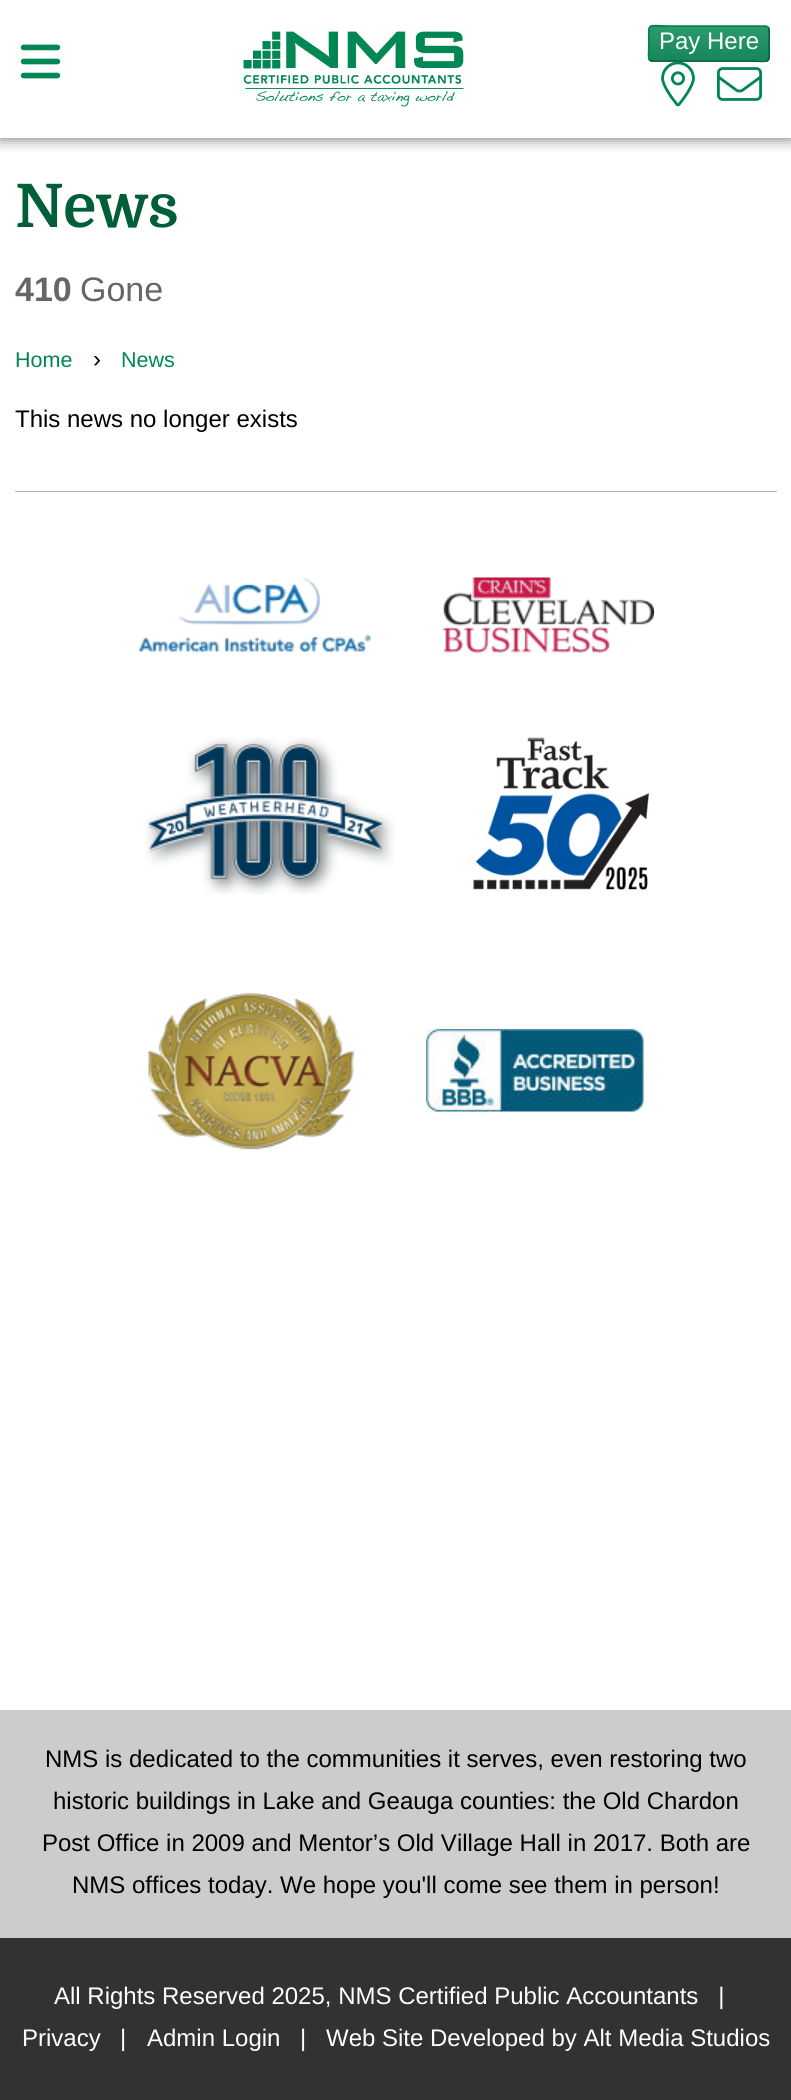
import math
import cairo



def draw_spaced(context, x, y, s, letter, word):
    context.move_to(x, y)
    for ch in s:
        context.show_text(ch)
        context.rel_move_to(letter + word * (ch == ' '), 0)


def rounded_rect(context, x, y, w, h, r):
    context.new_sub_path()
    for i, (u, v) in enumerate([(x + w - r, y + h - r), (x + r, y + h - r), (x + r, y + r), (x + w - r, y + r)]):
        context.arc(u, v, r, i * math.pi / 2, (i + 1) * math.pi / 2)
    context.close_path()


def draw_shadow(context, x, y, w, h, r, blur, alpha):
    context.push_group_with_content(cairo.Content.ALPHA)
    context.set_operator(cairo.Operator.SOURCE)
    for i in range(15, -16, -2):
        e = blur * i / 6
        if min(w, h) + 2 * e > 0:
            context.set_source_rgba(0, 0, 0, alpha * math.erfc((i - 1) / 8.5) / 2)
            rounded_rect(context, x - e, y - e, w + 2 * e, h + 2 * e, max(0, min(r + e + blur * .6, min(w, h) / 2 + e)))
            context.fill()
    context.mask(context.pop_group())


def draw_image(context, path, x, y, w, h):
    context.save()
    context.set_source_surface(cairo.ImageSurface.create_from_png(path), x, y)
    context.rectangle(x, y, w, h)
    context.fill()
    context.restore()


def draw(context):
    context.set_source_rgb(1, 1, 1)
    context.paint()
    context.save()
    context.rectangle(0, 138, 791, 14)
    context.clip()
    context.set_source_rgb(0, 0, 0)
    draw_shadow(context, 0, 0, 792, 138, 0, 7.5, 0.6)
    context.restore()
    draw_image(context, "images/1.png", 20, 44, 41, 35)
    draw_image(context, "images/2.png", 243, 31, 221, 76)
    context.save()
    rounded_rect(context, 648, 26, 122, 36, 4)
    context.clip()
    gradient = cairo.LinearGradient(709, -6, 709, 27)
    gradient.add_color_stop_rgba(0, 43 / 255, 155 / 255, 111 / 255, 1)
    gradient.add_color_stop_rgba(1, 23 / 255, 135 / 255, 91 / 255, 1)
    context.set_source(gradient)
    context.rectangle(648, 26, 122, 1)
    context.fill()
    gradient = cairo.LinearGradient(709, 27, 709, 60)
    gradient.add_color_stop_rgba(0, 43 / 255, 155 / 255, 111 / 255, 1)
    gradient.add_color_stop_rgba(1, 23 / 255, 135 / 255, 91 / 255, 1)
    context.set_source(gradient)
    context.rectangle(648, 27, 122, 33)
    context.fill()
    gradient = cairo.LinearGradient(709, 60, 709, 93)
    gradient.add_color_stop_rgba(0, 43 / 255, 155 / 255, 111 / 255, 1)
    gradient.add_color_stop_rgba(1, 23 / 255, 135 / 255, 91 / 255, 1)
    context.set_source(gradient)
    context.rectangle(648, 60, 122, 2)
    context.fill()
    context.restore()
    context.new_path()
    context.move_to(768, 27)
    context.curve_to(770, 29, 769, 40.5, 769, 43.5)
    context.curve_to(769, 66, 772, 61, 747, 61)
    context.line_to(651.5, 61)
    context.line_to(649.5, 60)
    context.set_source_rgb(0, 97 / 255, 59 / 255)
    context.set_line_width(1.5)
    context.stroke()
    context.new_path()
    context.move_to(649.5, 60)
    context.curve_to(647.5, 58, 649, 46.5, 649, 43.5)
    context.curve_to(649, 21, 645.5, 26, 670.5, 26)
    context.line_to(766, 26)
    context.line_to(768, 27)
    context.set_source_rgb(0, 129 / 255, 78 / 255)
    context.stroke()
    draw_image(context, "images/3.png", 661, 62, 34, 45)
    draw_image(context, "images/4.png", 717, 67, 45, 34)
    context.set_source_rgb(179 / 255, 179 / 255, 179 / 255)
    context.rectangle(15, 491, 762, 1)
    context.fill()
    draw_image(context, "images/5.png", 139, 577, 232, 76)
    draw_image(context, "images/6.png", 442, 577, 212, 76)
    draw_image(context, "images/7.png", 145, 737, 250, 158)
    draw_image(context, "images/8.png", 473, 737, 176, 153)
    draw_image(context, "images/9.png", 148, 992, 206, 158)
    draw_image(context, "images/10.png", 426, 1029, 218, 83)
    context.set_source_rgb(204 / 255, 204 / 255, 204 / 255)
    context.rectangle(0, 1710, 791, 228)
    context.fill()
    context.set_source_rgb(50 / 255, 50 / 255, 50 / 255)
    context.rectangle(0, 1938, 791, 162)
    context.fill()
    context.select_font_face("Liberation Sans")
    context.set_font_size(24)
    context.set_source_rgb(1, 1, 1)
    context.move_to(659, 49)
    context.show_text("Pay Here")
    context.select_font_face("Domine", cairo.FontSlant.NORMAL, cairo.FontWeight.BOLD)
    context.set_font_size(60)
    context.set_source_rgb(0, 94 / 255, 57 / 255)
    draw_spaced(context, 15, 227, "News", -1, 0)
    context.select_font_face("Liberation Sans", cairo.FontSlant.NORMAL, cairo.FontWeight.BOLD)
    context.set_font_size(34)
    context.set_source_rgb(102 / 255, 102 / 255, 102 / 255)
    context.move_to(15, 301)
    context.show_text("410")
    context.select_font_face("Liberation Sans")
    context.move_to(80, 301)
    context.show_text("Gone")
    context.set_font_size(21.5)
    context.set_source_rgb(0, 135 / 255, 82 / 255)
    context.move_to(15, 367)
    context.show_text("Home")
    context.set_font_size(24)
    context.set_source_rgb(0, 0, 0)
    context.move_to(93, 367)
    context.show_text("›")
    context.set_font_size(21.5)
    context.set_source_rgb(0, 135 / 255, 82 / 255)
    context.move_to(121, 367)
    context.show_text("News")
    context.set_font_size(24)
    context.set_source_rgb(0, 0, 0)
    context.move_to(15, 427)
    context.show_text("This news no longer exists")
    context.move_to(45, 1767)
    context.show_text("NMS is dedicated to the communities it serves, even restoring two")
    context.move_to(53, 1809)
    context.show_text("historic buildings in Lake and Geauga counties: the Old Chardon")
    context.move_to(42, 1851)
    context.show_text("Post Office in 2009 and Mentor’s Old Village Hall in 2017. Both are")
    context.move_to(72, 1893)
    context.show_text("NMS offices today. We hope you'll come see them in person!")
    context.set_source_rgb(1, 1, 1)
    context.move_to(54, 2004)
    context.show_text("All Rights Reserved 2025, NMS Certified Public Accountants   |")
    context.move_to(22, 2046)
    context.show_text("Privacy")
    context.move_to(120, 2046)
    context.show_text("|")
    context.move_to(147, 2046)
    context.show_text("Admin Login")
    context.move_to(300, 2046)
    context.show_text("|")
    context.move_to(326, 2046)
    context.show_text("Web Site Developed by Alt Media Studios")


surface = cairo.ImageSurface(cairo.Format.RGB24, 791, 2100)
context = cairo.Context(surface)
options = cairo.FontOptions()
options.set_hint_metrics(cairo.HintMetrics.OFF)
options.set_hint_style(cairo.HintStyle.NONE)
context.set_font_options(options)
context.set_miter_limit(4)
draw(context)
surface.write_to_png("out.png")
